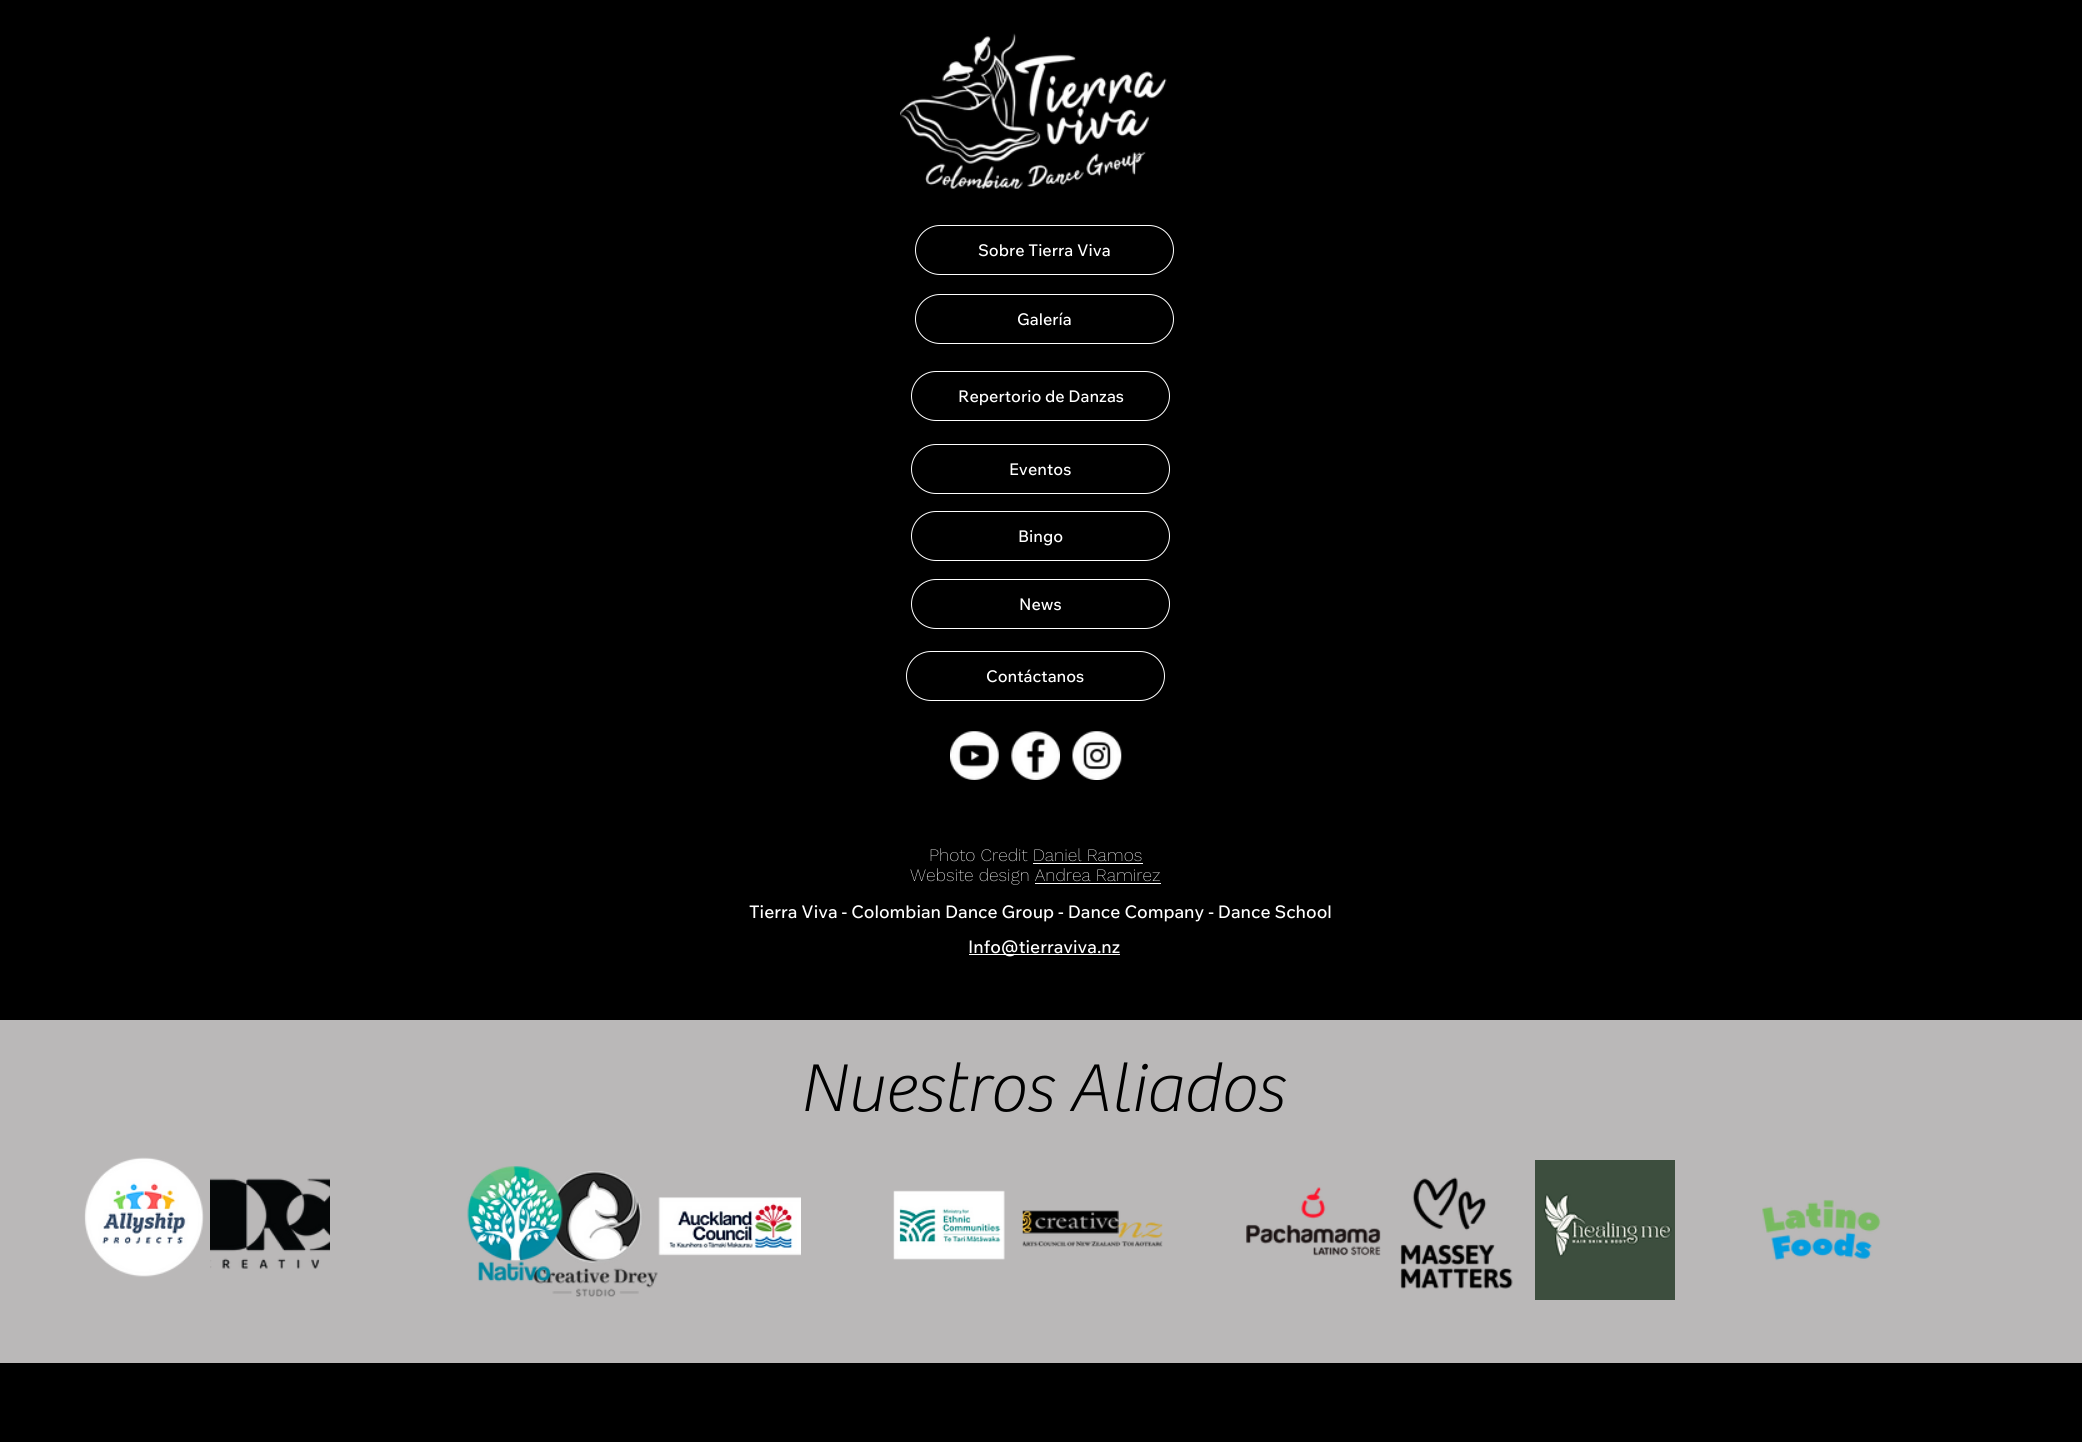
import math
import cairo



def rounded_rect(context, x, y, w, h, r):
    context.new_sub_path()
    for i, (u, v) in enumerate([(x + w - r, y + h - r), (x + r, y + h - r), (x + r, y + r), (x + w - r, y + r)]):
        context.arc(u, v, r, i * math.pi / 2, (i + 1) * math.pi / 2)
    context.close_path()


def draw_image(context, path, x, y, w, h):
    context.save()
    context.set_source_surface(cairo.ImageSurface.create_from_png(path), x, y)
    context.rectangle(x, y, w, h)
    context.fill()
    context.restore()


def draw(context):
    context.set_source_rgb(0, 0, 0)
    context.paint()
    draw_image(context, "images/1.png", 900, 33, 267, 156)
    rounded_rect(context, 915.5, 225.5, 258, 49, 24.5)
    context.set_source_rgb(1, 1, 1)
    context.set_line_width(1)
    context.stroke()
    rounded_rect(context, 915.5, 294.5, 258, 49, 24.5)
    context.stroke()
    rounded_rect(context, 911.5, 371.5, 258, 49, 24.5)
    context.stroke()
    rounded_rect(context, 911.5, 444.5, 258, 49, 24.5)
    context.stroke()
    rounded_rect(context, 911.5, 511.5, 258, 49, 24.5)
    context.stroke()
    rounded_rect(context, 911.5, 579.5, 258, 49, 24.5)
    context.stroke()
    rounded_rect(context, 906.5, 651.5, 258, 49, 24.5)
    context.stroke()
    draw_image(context, "images/2.png", 950, 731, 49, 49)
    draw_image(context, "images/3.png", 1011, 731, 49, 49)
    draw_image(context, "images/4.png", 1072, 731, 50, 49)
    context.rectangle(1033, 863, 110, 1)
    context.fill()
    context.rectangle(1035, 883, 126, 1)
    context.fill()
    context.rectangle(969, 954, 151, 1)
    context.fill()
    context.set_source_rgb(186 / 255, 184 / 255, 184 / 255)
    context.rectangle(0, 1020, 2082, 343)
    context.fill()
    draw_image(context, "images/5.png", 84, 1157, 120, 120)
    draw_image(context, "images/6.png", 210, 1178, 120, 91)
    draw_image(context, "images/7.png", 533, 1171, 125, 126)
    draw_image(context, "images/8.png", 658, 1197, 143, 59)
    draw_image(context, "images/9.png", 893, 1190, 112, 70)
    draw_image(context, "images/10.png", 1022, 1210, 141, 37)
    draw_image(context, "images/11.png", 1246, 1187, 135, 69)
    draw_image(context, "images/12.png", 1400, 1177, 113, 112)
    draw_image(context, "images/13.png", 1535, 1160, 140, 140)
    draw_image(context, "images/14.png", 1762, 1199, 119, 62)
    draw_image(context, "images/15.png", 467, 1166, 96, 116)
    context.select_font_face("Wix Madefor Text Medium")
    context.set_font_size(16.25)
    context.set_source_rgb(1, 1, 1)
    context.move_to(978, 256)
    context.show_text("Sobre Tierra Viva")
    context.move_to(1017, 325)
    context.show_text("Galería")
    context.move_to(958, 402)
    context.show_text("Repertorio de Danzas")
    context.move_to(1009, 475)
    context.show_text("Eventos")
    context.move_to(1018, 542)
    context.show_text("Bingo")
    context.move_to(1019, 610)
    context.show_text("News")
    context.move_to(986, 682)
    context.show_text("Contáctanos")
    context.select_font_face("Work Sans ExtraLight")
    context.set_font_size(17.5)
    context.move_to(929, 861)
    context.show_text("Photo Credit Daniel Ramos")
    context.move_to(910, 881)
    context.show_text("Website design Andrea Ramirez")
    context.select_font_face("Wix Madefor Text Medium")
    context.move_to(749, 918)
    context.show_text("Tierra Viva - Colombian Dance Group - Dance Company - Dance School")
    context.move_to(968, 953)
    context.show_text("Info@tierraviva.nz")
    context.select_font_face("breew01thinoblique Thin")
    context.set_font_size(70)
    context.set_source_rgb(0, 0, 0)
    context.move_to(799, 1111)
    context.show_text("Nuestros Aliados")


surface = cairo.ImageSurface(cairo.Format.RGB24, 2082, 1442)
context = cairo.Context(surface)
options = cairo.FontOptions()
options.set_hint_metrics(cairo.HintMetrics.OFF)
options.set_hint_style(cairo.HintStyle.NONE)
context.set_font_options(options)
context.set_miter_limit(4)
draw(context)
surface.write_to_png("out.png")
